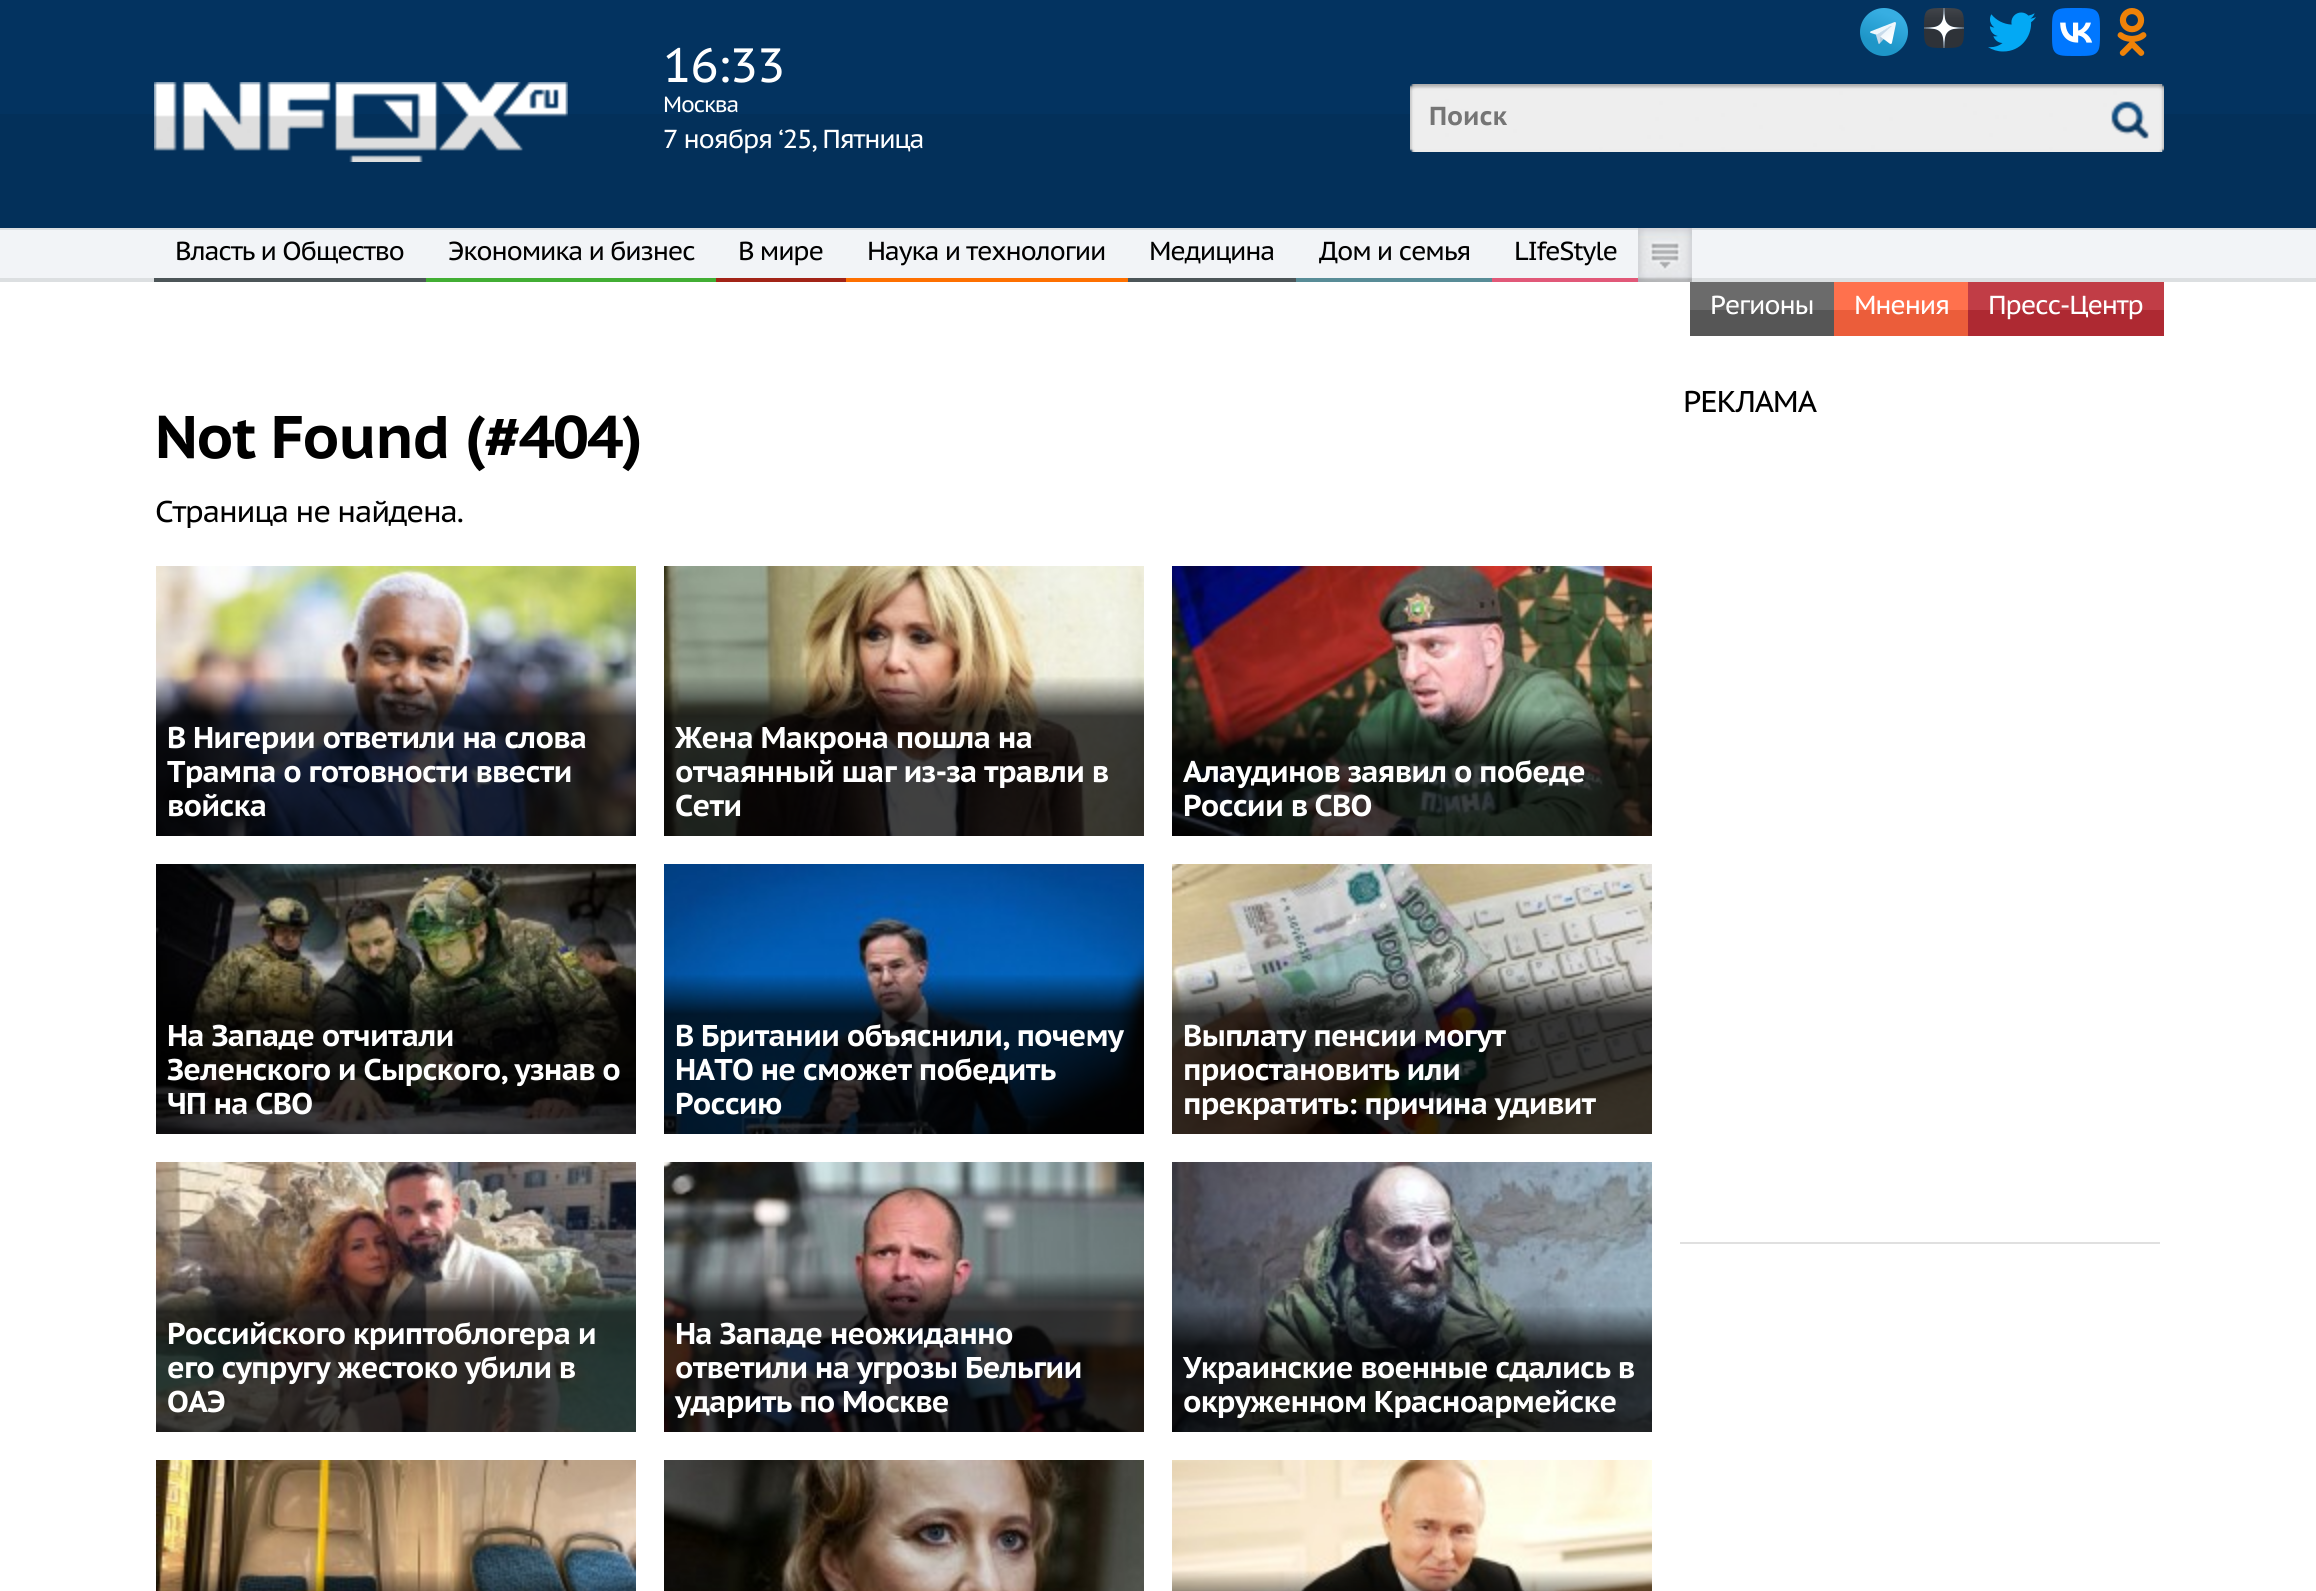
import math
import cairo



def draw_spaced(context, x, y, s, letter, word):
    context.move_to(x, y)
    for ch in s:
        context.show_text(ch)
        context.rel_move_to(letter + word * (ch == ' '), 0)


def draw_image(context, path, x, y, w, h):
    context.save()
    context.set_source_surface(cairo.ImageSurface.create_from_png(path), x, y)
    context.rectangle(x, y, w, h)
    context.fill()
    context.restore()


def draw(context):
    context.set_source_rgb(1, 1, 1)
    context.paint()
    context.set_source_rgb(3 / 255, 51 / 255, 96 / 255)
    context.rectangle(0, 0, 2316, 114)
    context.fill()
    context.set_source_rgb(3 / 255, 48 / 255, 90 / 255)
    context.rectangle(0, 114, 2316, 114)
    context.fill()
    draw_image(context, "images/1.png", 154, 82, 414, 80)
    draw_image(context, "images/2.png", 1860, 8, 48, 48)
    draw_image(context, "images/3.png", 1924, 8, 40, 40)
    draw_image(context, "images/4.png", 1988, 12, 48, 40)
    draw_image(context, "images/5.png", 2052, 8, 48, 48)
    draw_image(context, "images/6.png", 2117, 8, 30, 48)
    draw_image(context, "images/7.png", 1410, 84, 752, 68)
    draw_image(context, "images/8.png", 2111, 84, 53, 68)
    context.set_source_rgb(242 / 255, 244 / 255, 247 / 255)
    context.rectangle(0, 230, 2316, 48)
    context.fill()
    context.set_source_rgb(220 / 255, 223 / 255, 225 / 255)
    context.rectangle(0, 228, 2316, 2)
    context.fill()
    context.rectangle(0, 278, 2316, 4)
    context.fill()
    context.set_source_rgb(76 / 255, 85 / 255, 88 / 255)
    context.rectangle(154, 278, 272, 4)
    context.fill()
    context.set_source_rgb(66 / 255, 174 / 255, 52 / 255)
    context.rectangle(426, 278, 290, 4)
    context.fill()
    context.set_source_rgb(162 / 255, 36 / 255, 23 / 255)
    context.rectangle(716, 278, 130, 4)
    context.fill()
    context.set_source_rgb(254 / 255, 112 / 255, 0)
    context.rectangle(846, 278, 282, 4)
    context.fill()
    context.set_source_rgb(76 / 255, 85 / 255, 88 / 255)
    context.rectangle(1128, 278, 168, 4)
    context.fill()
    context.set_source_rgb(88 / 255, 140 / 255, 151 / 255)
    context.rectangle(1296, 278, 196, 4)
    context.fill()
    context.set_source_rgb(225 / 255, 88 / 255, 120 / 255)
    context.rectangle(1492, 278, 146, 4)
    context.fill()
    draw_image(context, "images/9.png", 1638, 228, 54, 54)
    context.set_source_rgb(107 / 255, 107 / 255, 107 / 255)
    context.rectangle(1690, 282, 144, 28)
    context.fill()
    context.set_source_rgb(86 / 255, 86 / 255, 86 / 255)
    context.rectangle(1690, 310, 144, 26)
    context.fill()
    context.set_source_rgb(1, 113 / 255, 77 / 255)
    context.rectangle(1834, 282, 134, 28)
    context.fill()
    context.set_source_rgb(235 / 255, 93 / 255, 58 / 255)
    context.rectangle(1834, 310, 134, 26)
    context.fill()
    context.set_source_rgb(193 / 255, 61 / 255, 70 / 255)
    context.rectangle(1968, 282, 196, 28)
    context.fill()
    context.set_source_rgb(174 / 255, 41 / 255, 50 / 255)
    context.rectangle(1968, 310, 196, 26)
    context.fill()
    context.set_source_rgb(224 / 255, 224 / 255, 224 / 255)
    context.rectangle(1680, 1242, 480, 2)
    context.fill()
    draw_image(context, "images/10.png", 156, 566, 480, 270)
    context.set_source_rgba(0, 0, 0, 0.75)
    context.rectangle(156, 716, 480, 120)
    context.fill()
    draw_image(context, "images/11.png", 664, 566, 480, 270)
    context.rectangle(664, 716, 480, 120)
    context.fill()
    draw_image(context, "images/12.png", 1172, 566, 480, 270)
    context.rectangle(1172, 750, 480, 86)
    context.fill()
    draw_image(context, "images/13.png", 156, 864, 480, 270)
    context.rectangle(156, 1014, 480, 120)
    context.fill()
    draw_image(context, "images/14.png", 664, 864, 480, 270)
    context.rectangle(664, 1014, 480, 120)
    context.fill()
    draw_image(context, "images/15.png", 1172, 864, 480, 270)
    context.rectangle(1172, 1014, 480, 120)
    context.fill()
    draw_image(context, "images/16.png", 156, 1162, 480, 270)
    context.rectangle(156, 1312, 480, 120)
    context.fill()
    draw_image(context, "images/17.png", 664, 1162, 480, 270)
    context.rectangle(664, 1312, 480, 120)
    context.fill()
    draw_image(context, "images/18.png", 1172, 1162, 480, 270)
    context.rectangle(1172, 1346, 480, 86)
    context.fill()
    draw_image(context, "images/19.png", 156, 1460, 480, 131)
    draw_image(context, "images/20.png", 664, 1460, 480, 131)
    draw_image(context, "images/21.png", 1172, 1460, 480, 131)
    context.select_font_face("PT Sans Caption")
    context.set_font_size(48)
    context.set_source_rgb(1, 1, 1)
    draw_spaced(context, 663, 82, "16:33", -1.2, 0)
    context.set_font_size(22)
    draw_spaced(context, 663, 112, "Москва", -1.2, 0)
    context.set_font_size(26)
    draw_spaced(context, 663, 148, "7 ноября ‘25, Пятница", -1.2, 0)
    context.select_font_face("PT Sans Caption", cairo.FontSlant.NORMAL, cairo.FontWeight.BOLD)
    context.set_source_rgb(117 / 255, 117 / 255, 117 / 255)
    context.move_to(1429, 125)
    context.show_text("Поиск")
    context.select_font_face("PT Sans Caption")
    context.set_source_rgb(0, 0, 0)
    draw_spaced(context, 175, 260, "Власть и Общество", -1.2, 0)
    draw_spaced(context, 448, 260, "Экономика и бизнес", -1.2, 0)
    draw_spaced(context, 738, 260, "В мире", -1.2, 0)
    draw_spaced(context, 867, 260, "Наука и технологии", -1.2, 0)
    draw_spaced(context, 1149, 260, "Медицина", -1.2, 0)
    draw_spaced(context, 1319, 260, "Дом и семья", -1.2, 0)
    draw_spaced(context, 1514, 260, "LIfeStyle", -1.2, 0)
    context.set_source_rgb(1, 1, 1)
    draw_spaced(context, 1710, 314, "Регионы", -1.2, 0)
    draw_spaced(context, 1854, 314, "Мнения", -1.2, 0)
    draw_spaced(context, 1988, 314, "Пресс-Центр", -1.2, 0)
    context.set_font_size(30)
    context.set_source_rgb(0, 0, 0)
    draw_spaced(context, 1683, 412, "РЕКЛАМА", -1.2, 0)
    context.select_font_face("PT Sans Caption", cairo.FontSlant.NORMAL, cairo.FontWeight.BOLD)
    context.set_font_size(60)
    draw_spaced(context, 155, 458, "Not Found (#404)", -1.2, 0)
    context.select_font_face("PT Sans Caption")
    context.set_font_size(30)
    draw_spaced(context, 155, 522, "Страница не найдена.", -1.2, 0)
    context.select_font_face("PT Sans Caption", cairo.FontSlant.NORMAL, cairo.FontWeight.BOLD)
    context.set_source_rgb(1, 1, 1)
    draw_spaced(context, 167, 748, "В Нигерии ответили на слова", -0.8, 0)
    draw_spaced(context, 167, 782, "Трампа о готовности ввести", -0.8, 0)
    draw_spaced(context, 167, 816, "войска", -0.8, 0)
    draw_spaced(context, 675, 748, "Жена Макрона пошла на", -0.8, 0)
    draw_spaced(context, 675, 782, "отчаянный шаг из-за травли в", -0.8, 0)
    draw_spaced(context, 675, 816, "Сети", -0.8, 0)
    draw_spaced(context, 1183, 782, "Алаудинов заявил о победе", -0.8, 0)
    draw_spaced(context, 1183, 816, "России в СВО", -0.8, 0)
    draw_spaced(context, 167, 1046, "На Западе отчитали", -0.8, 0)
    draw_spaced(context, 167, 1080, "Зеленского и Сырского, узнав о", -0.8, 0)
    draw_spaced(context, 167, 1114, "ЧП на СВО", -0.8, 0)
    draw_spaced(context, 675, 1046, "В Британии объяснили, почему", -0.8, 0)
    draw_spaced(context, 675, 1080, "НАТО не сможет победить", -0.8, 0)
    draw_spaced(context, 675, 1114, "Россию", -0.8, 0)
    draw_spaced(context, 1183, 1046, "Выплату пенсии могут", -0.8, 0)
    draw_spaced(context, 1183, 1080, "приостановить или", -0.8, 0)
    draw_spaced(context, 1183, 1114, "прекратить: причина удивит", -0.8, 0)
    draw_spaced(context, 167, 1344, "Российского криптоблогера и", -0.8, 0)
    draw_spaced(context, 167, 1378, "его супругу жестоко убили в", -0.8, 0)
    draw_spaced(context, 167, 1412, "ОАЭ", -0.8, 0)
    draw_spaced(context, 675, 1344, "На Западе неожиданно", -0.8, 0)
    draw_spaced(context, 675, 1378, "ответили на угрозы Бельгии", -0.8, 0)
    draw_spaced(context, 675, 1412, "ударить по Москве", -0.8, 0)
    draw_spaced(context, 1183, 1378, "Украинские военные сдались в", -0.8, 0)
    draw_spaced(context, 1183, 1412, "окруженном Красноармейске", -0.8, 0)


surface = cairo.ImageSurface(cairo.Format.RGB24, 2316, 1591)
context = cairo.Context(surface)
options = cairo.FontOptions()
options.set_hint_metrics(cairo.HintMetrics.OFF)
options.set_hint_style(cairo.HintStyle.NONE)
context.set_font_options(options)
context.set_miter_limit(4)
draw(context)
surface.write_to_png("out.png")
